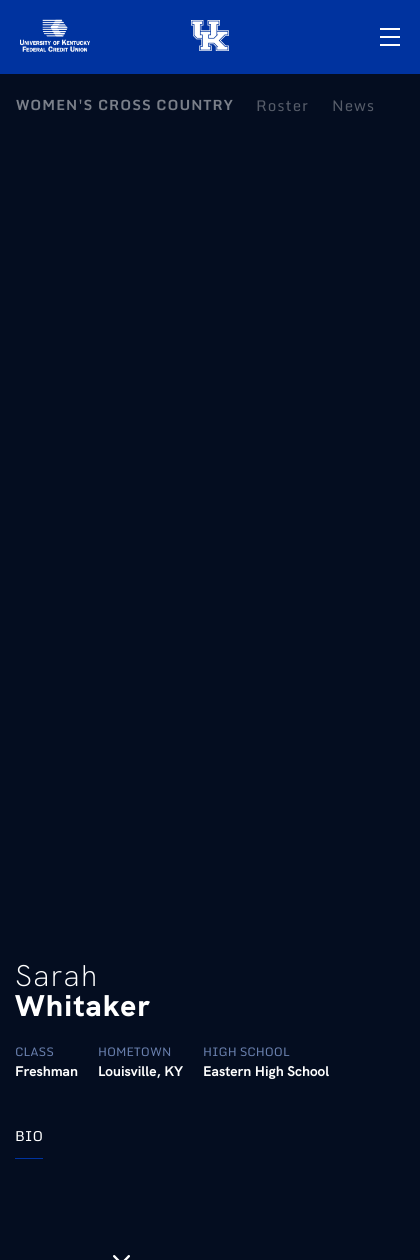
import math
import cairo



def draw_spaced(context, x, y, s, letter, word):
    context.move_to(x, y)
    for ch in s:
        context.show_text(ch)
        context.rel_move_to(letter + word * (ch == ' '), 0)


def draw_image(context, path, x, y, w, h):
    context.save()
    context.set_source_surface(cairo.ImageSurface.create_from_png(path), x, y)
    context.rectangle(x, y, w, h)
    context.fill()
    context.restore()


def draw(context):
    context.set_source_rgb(4 / 255, 13 / 255, 32 / 255)
    context.paint()
    context.set_source_rgb(0, 51 / 255, 159 / 255)
    context.rectangle(0, 0, 420, 74)
    context.fill()
    draw_image(context, "images/1.png", 20, 19, 70, 33)
    draw_image(context, "images/2.png", 191, 20, 38, 31)
    context.set_source_rgb(1, 1, 1)
    context.rectangle(380, 36, 20, 2)
    context.fill()
    context.rectangle(380, 28, 20, 2)
    context.fill()
    context.rectangle(380, 44, 20, 2)
    context.fill()
    context.set_source_rgb(0, 51 / 255, 159 / 255)
    context.rectangle(15, 1158, 28, 1)
    context.fill()
    draw_image(context, "images/3.png", 113, 1255, 17, 5)
    context.select_font_face("Monda", cairo.FontSlant.NORMAL, cairo.FontWeight.BOLD)
    context.set_font_size(14)
    context.set_source_rgb(1, 1, 1)
    draw_spaced(context, 16, 110, "WOMEN'S CROSS COUNTRY", 1, 0)
    context.select_font_face("Monda")
    context.set_font_size(15)
    context.set_source_rgb(180 / 255, 182 / 255, 188 / 255)
    draw_spaced(context, 256, 111, "Roster", 1, 0)
    draw_spaced(context, 332, 111, "News", 1, 0)
    gradient = cairo.LinearGradient(210, 387, 210, -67)
    gradient.add_color_stop_rgba(0, 4 / 255, 13 / 255, 32 / 255, 1)
    gradient.add_color_stop_rgba(0.66, 4 / 255, 13 / 255, 32 / 255, 0.5)
    gradient.add_color_stop_rgba(1, 4 / 255, 13 / 255, 32 / 255, 0)
    context.set_source(gradient)
    context.rectangle(16, 99, 358, 13)
    context.fill()
    context.select_font_face("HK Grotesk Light")
    context.set_font_size(30)
    context.set_source_rgb(1, 1, 1)
    draw_spaced(context, 15, 986, "Sarah", 1.25, 0)
    context.select_font_face("HK Grotesk ExtraBold")
    draw_spaced(context, 15, 1016, "Whitaker", 1.25, 0)
    context.select_font_face("Monda")
    context.set_font_size(12)
    context.set_source_rgb(105 / 255, 127 / 255, 173 / 255)
    context.move_to(15, 1056)
    context.show_text("CLASS")
    context.select_font_face("HK Grotesk", cairo.FontSlant.NORMAL, cairo.FontWeight.BOLD)
    context.set_font_size(14)
    context.set_source_rgb(1, 1, 1)
    context.move_to(15, 1076)
    context.show_text("Freshman")
    context.select_font_face("Monda")
    context.set_font_size(12)
    context.set_source_rgb(105 / 255, 127 / 255, 173 / 255)
    context.move_to(98, 1056)
    context.show_text("HOMETOWN")
    context.select_font_face("HK Grotesk", cairo.FontSlant.NORMAL, cairo.FontWeight.BOLD)
    context.set_font_size(14)
    context.set_source_rgb(1, 1, 1)
    context.move_to(98, 1076)
    context.show_text("Louisville, KY")
    context.select_font_face("Monda")
    context.set_font_size(12)
    context.set_source_rgb(105 / 255, 127 / 255, 173 / 255)
    context.move_to(203, 1056)
    context.show_text("HIGH SCHOOL")
    context.select_font_face("HK Grotesk", cairo.FontSlant.NORMAL, cairo.FontWeight.BOLD)
    context.set_font_size(14)
    context.set_source_rgb(1, 1, 1)
    context.move_to(203, 1076)
    context.show_text("Eastern High School")
    context.select_font_face("Monda")
    context.move_to(15, 1141)
    context.show_text("BIO")


surface = cairo.ImageSurface(cairo.Format.RGB24, 420, 1260)
context = cairo.Context(surface)
options = cairo.FontOptions()
options.set_hint_metrics(cairo.HintMetrics.OFF)
options.set_hint_style(cairo.HintStyle.NONE)
context.set_font_options(options)
context.set_miter_limit(4)
draw(context)
surface.write_to_png("out.png")
